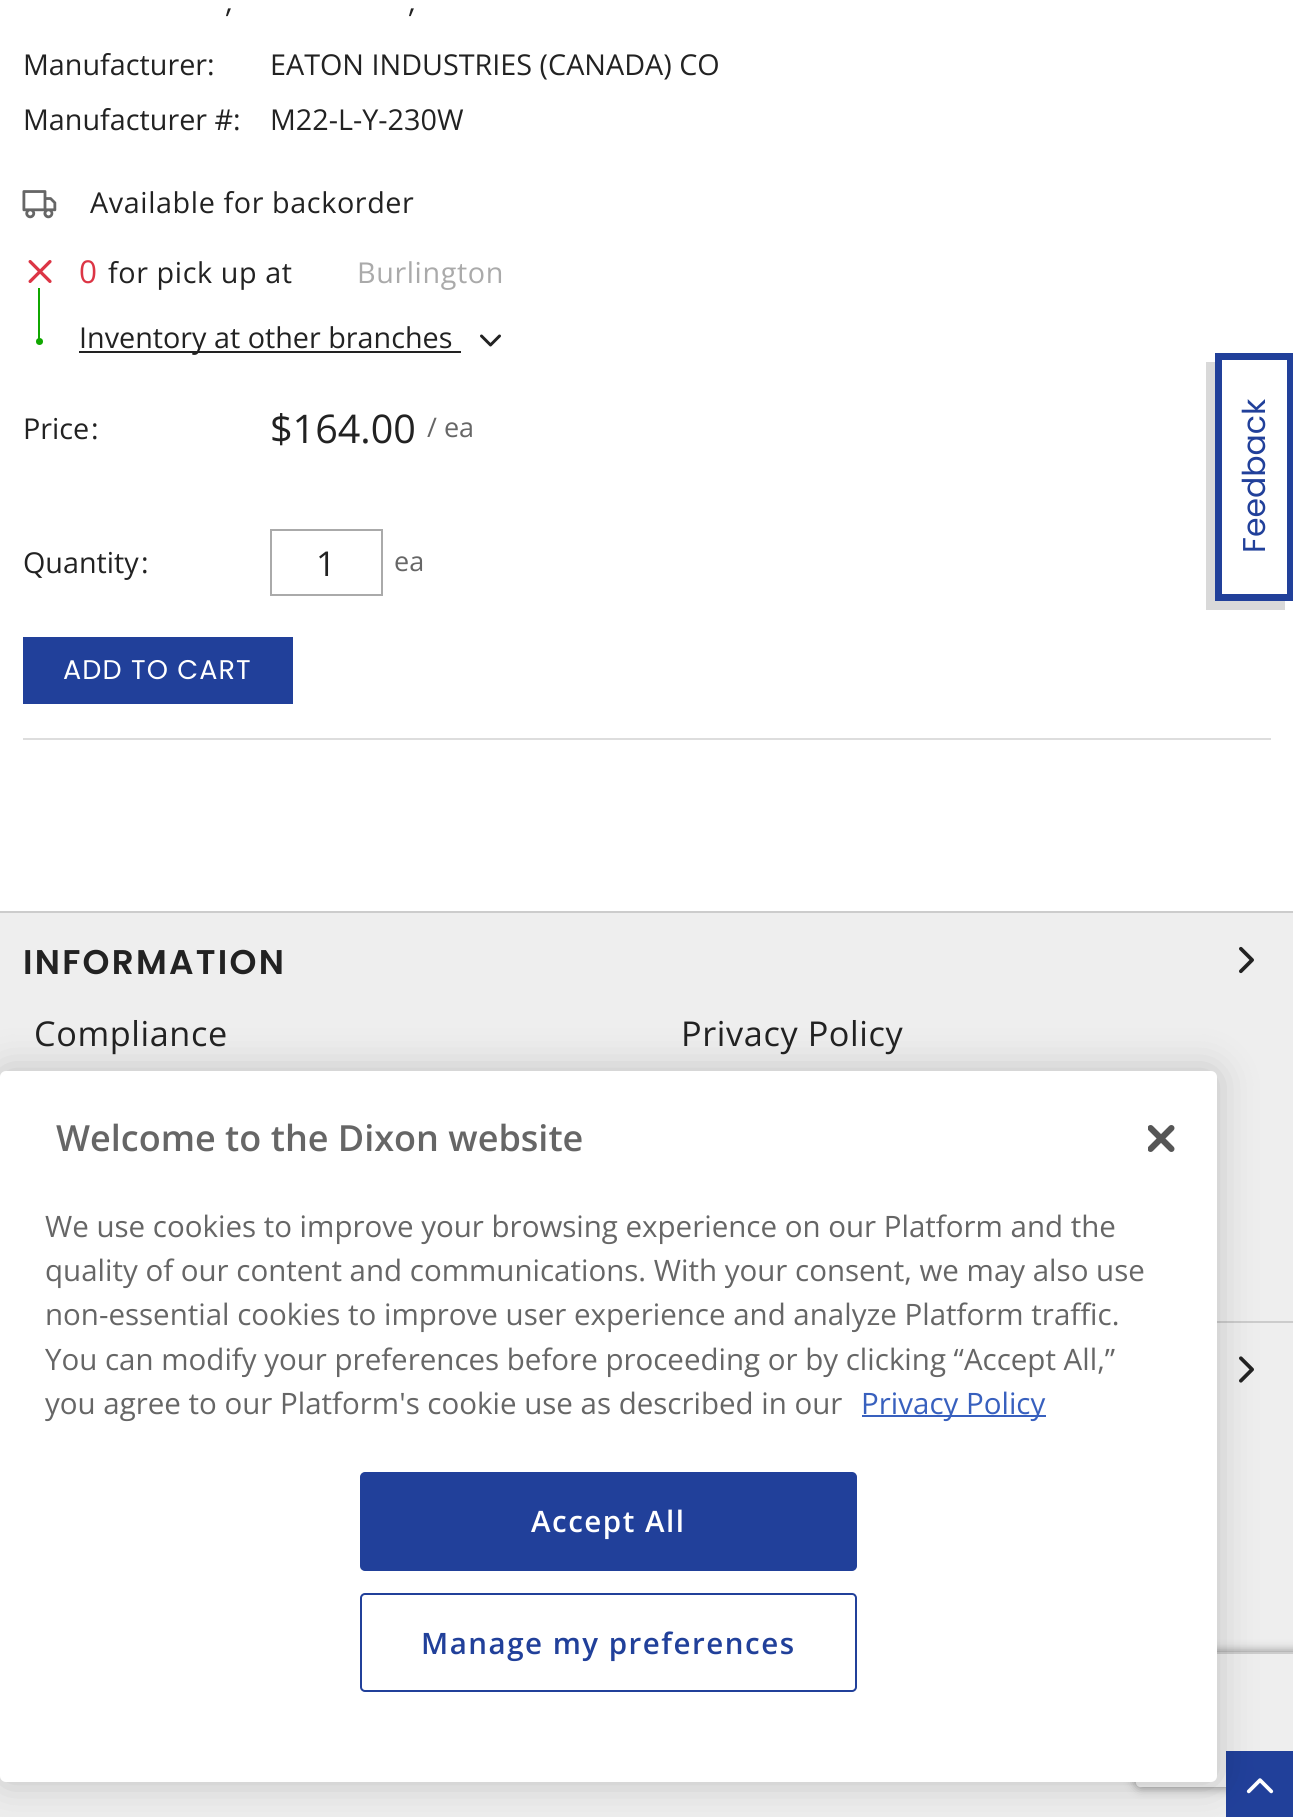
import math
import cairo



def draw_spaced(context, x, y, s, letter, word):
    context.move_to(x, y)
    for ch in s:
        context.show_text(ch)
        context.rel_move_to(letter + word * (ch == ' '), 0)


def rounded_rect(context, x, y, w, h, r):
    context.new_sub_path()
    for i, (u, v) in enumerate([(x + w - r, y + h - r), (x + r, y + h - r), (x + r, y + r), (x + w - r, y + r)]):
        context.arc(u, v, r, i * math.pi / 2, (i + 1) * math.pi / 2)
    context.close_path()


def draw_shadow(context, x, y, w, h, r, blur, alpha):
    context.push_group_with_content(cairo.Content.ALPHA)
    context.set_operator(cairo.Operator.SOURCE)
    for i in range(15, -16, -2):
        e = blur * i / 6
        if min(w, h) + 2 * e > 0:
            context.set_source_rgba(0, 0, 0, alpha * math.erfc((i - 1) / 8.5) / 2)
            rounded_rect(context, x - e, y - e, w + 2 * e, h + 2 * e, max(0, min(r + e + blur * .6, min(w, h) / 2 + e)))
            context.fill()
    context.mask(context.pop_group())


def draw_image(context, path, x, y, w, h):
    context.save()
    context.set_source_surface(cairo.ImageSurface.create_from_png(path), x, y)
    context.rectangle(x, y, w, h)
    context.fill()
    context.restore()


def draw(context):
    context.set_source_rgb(1, 1, 1)
    context.paint()
    context.set_source_rgb(221 / 255, 221 / 255, 221 / 255)
    context.rectangle(23, 738, 1248, 2)
    context.fill()
    draw_image(context, "images/1.png", 22, 190, 35, 29)
    draw_image(context, "images/2.png", 28, 260, 24, 23)
    context.set_source_rgb(16 / 255, 167 / 255, 0)
    context.rectangle(38, 288, 2, 54)
    context.fill()
    context.arc(39.5, 341.5, 3.5, 0, 2 * math.pi)
    context.fill()
    context.set_source_rgb(34 / 255, 34 / 255, 34 / 255)
    context.rectangle(79, 351, 382, 2)
    context.fill()
    draw_image(context, "images/3.png", 480, 334, 21, 13)
    context.rectangle(271, 530, 111, 65)
    context.set_source_rgb(170 / 255, 170 / 255, 170 / 255)
    context.stroke()
    context.set_source_rgb(33 / 255, 64 / 255, 154 / 255)
    context.rectangle(23, 637, 270, 67)
    context.fill()
    context.set_source_rgb(217 / 255, 217 / 255, 217 / 255)
    context.new_path()
    context.move_to(1206, 362)
    context.line_to(1206, 610)
    context.line_to(1285, 610)
    context.line_to(1285, 600)
    context.line_to(1215, 600)
    context.line_to(1215, 362)
    context.close_path()
    context.fill()
    context.rectangle(1218.5, 356.5, 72, 241)
    context.set_source_rgb(33 / 255, 64 / 255, 154 / 255)
    context.set_line_width(7)
    context.stroke()
    context.set_source_rgb(238 / 255, 238 / 255, 238 / 255)
    context.rectangle(0, 913, 1293, 904)
    context.fill()
    context.set_source_rgb(204 / 255, 204 / 255, 204 / 255)
    context.rectangle(0, 911, 1293, 2)
    context.fill()
    context.rectangle(1217, 1321, 76, 2)
    context.fill()
    draw_image(context, "images/4.png", 1239, 946, 15, 28)
    draw_image(context, "images/5.png", 1239, 1356, 15, 27)
    context.rectangle(1217, 1652, 76, 2)
    context.fill()
    context.save()
    context.set_fill_rule(cairo.FillRule.EVEN_ODD)
    context.new_path()
    context.move_to(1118, 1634)
    context.line_to(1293, 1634)
    context.line_to(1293, 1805)
    context.line_to(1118, 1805)
    context.close_path()
    context.move_to(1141, 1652)
    context.line_to(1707, 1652)
    context.curve_to(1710, 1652, 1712, 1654, 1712, 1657)
    context.line_to(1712, 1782)
    context.curve_to(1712, 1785, 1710, 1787, 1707, 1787)
    context.line_to(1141, 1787)
    context.curve_to(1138, 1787, 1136, 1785, 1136, 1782)
    context.line_to(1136, 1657)
    context.curve_to(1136, 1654, 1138, 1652, 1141, 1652)
    context.close_path()
    context.clip()
    context.set_source_rgb(128 / 255, 128 / 255, 128 / 255)
    draw_shadow(context, 1136, 1652, 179, 135, 5, 5.5, 1)
    context.restore()
    context.set_source_rgb(33 / 255, 64 / 255, 154 / 255)
    context.rectangle(1226, 1751, 67, 66)
    context.fill()
    draw_image(context, "images/6.png", 1246, 1778, 28, 16)
    context.set_source_rgb(0, 0, 0)
    draw_shadow(context, 0, 1071, 1217, 711, 6, 20, 0.2)
    context.set_source_rgb(1, 1, 1)
    rounded_rect(context, 0, 1071, 1217, 711, 6)
    context.fill()
    context.set_source_rgb(56 / 255, 96 / 255, 190 / 255)
    context.rectangle(862, 1415, 184, 2)
    context.fill()
    draw_image(context, "images/7.png", 1148, 1125, 27, 27)
    context.set_source_rgb(33 / 255, 64 / 255, 154 / 255)
    rounded_rect(context, 361, 1473, 495, 97, 4)
    context.fill_preserve()
    context.set_line_width(2)
    context.stroke()
    rounded_rect(context, 361, 1594, 495, 97, 4)
    context.stroke()
    context.select_font_face("Poppins")
    context.set_font_size(28.75)
    context.set_source_rgb(34 / 255, 34 / 255, 34 / 255)
    draw_spaced(context, 226, 12, ",", 0.6, 0)
    draw_spaced(context, 409, 12, ",", 0.6, 0)
    context.select_font_face("Open Sans")
    context.move_to(23, 75)
    context.show_text("Manufacturer:")
    context.move_to(270, 75)
    context.show_text("EATON INDUSTRIES (CANADA) CO")
    context.move_to(23, 130)
    context.show_text("Manufacturer #:")
    context.move_to(270, 130)
    context.show_text("M22-L-Y-230W")
    draw_spaced(context, 90, 213, "Available for backorder", 0.6, 0)
    context.set_font_size(31.5)
    context.set_source_rgb(220 / 255, 53 / 255, 69 / 255)
    context.move_to(79, 283)
    context.show_text("0")
    context.set_font_size(28.75)
    context.set_source_rgb(34 / 255, 34 / 255, 34 / 255)
    draw_spaced(context, 108, 283, "for pick up at", 0.6, 0)
    context.set_source_rgb(170 / 255, 170 / 255, 170 / 255)
    draw_spaced(context, 357, 283, "Burlington", 0.6, 0)
    context.set_source_rgb(34 / 255, 34 / 255, 34 / 255)
    context.move_to(79, 348)
    context.show_text("Inventory at other branches")
    context.move_to(23, 439)
    context.show_text("Price")
    context.move_to(91, 439)
    context.show_text(":")
    context.set_font_size(39.5)
    context.move_to(270, 443)
    context.show_text("$164.00")
    context.set_font_size(27)
    context.set_source_rgb(102 / 255, 102 / 255, 102 / 255)
    context.move_to(427, 437)
    context.show_text("/ ea")
    context.set_font_size(28.75)
    context.set_source_rgb(34 / 255, 34 / 255, 34 / 255)
    context.move_to(23, 573)
    context.show_text("Quantity")
    context.move_to(141, 573)
    context.show_text(":")
    context.set_font_size(34.25)
    context.move_to(316, 576)
    context.show_text("1")
    context.set_font_size(27)
    context.set_source_rgb(102 / 255, 102 / 255, 102 / 255)
    context.move_to(394, 571)
    context.show_text("ea")
    context.select_font_face("Poppins")
    context.set_source_rgb(1, 1, 1)
    draw_spaced(context, 63, 679, "ADD TO CART", 1.1, 0)
    context.set_font_size(31.5)
    context.set_source_rgb(33 / 255, 64 / 255, 154 / 255)
    context.save()
    context.translate(1265, 553)
    context.rotate(-90 * math.pi / 180)
    context.move_to(0, 0)
    context.show_text("Feedback")
    context.restore()
    context.select_font_face("Poppins SemiBold")
    context.set_font_size(34.25)
    context.set_source_rgb(34 / 255, 34 / 255, 34 / 255)
    draw_spaced(context, 23, 974, "INFORMATION", 2.25, 0)
    context.select_font_face("Open Sans")
    draw_spaced(context, 34, 1046, "Compliance", 0.6, 0)
    draw_spaced(context, 681, 1046, "Privacy Policy", 0.6, 0)
    context.select_font_face("Open Sans SemiBold")
    context.set_font_size(36)
    context.set_source_rgb(102 / 255, 102 / 255, 102 / 255)
    context.move_to(56, 1151)
    context.show_text("Welcome to the Dixon website")
    context.select_font_face("Open Sans")
    context.set_font_size(29.5)
    context.move_to(45, 1237)
    context.show_text("We use cookies to improve your browsing experience on our Platform and the")
    context.move_to(45, 1281)
    context.show_text("quality of our content and communications. With your consent, we may also use")
    context.move_to(45, 1325)
    context.show_text("non-essential cookies to improve user experience and analyze Platform traffic.")
    context.move_to(45, 1370)
    context.show_text("You can modify your preferences before proceeding or by clicking “Accept All,”")
    context.move_to(45, 1414)
    context.show_text("you agree to our Platform's cookie use as described in our")
    context.set_source_rgb(56 / 255, 96 / 255, 190 / 255)
    context.move_to(861, 1414)
    context.show_text("Privacy Policy")
    context.select_font_face("Open Sans SemiBold")
    context.set_source_rgb(1, 1, 1)
    draw_spaced(context, 531, 1532, "Accept All", 1.5, 0)
    context.set_source_rgb(33 / 255, 64 / 255, 154 / 255)
    draw_spaced(context, 421, 1654, "Manage my preferences", 1.5, 0)


surface = cairo.ImageSurface(cairo.Format.RGB24, 1293, 1817)
context = cairo.Context(surface)
options = cairo.FontOptions()
options.set_hint_metrics(cairo.HintMetrics.OFF)
options.set_hint_style(cairo.HintStyle.NONE)
context.set_font_options(options)
context.set_miter_limit(4)
draw(context)
surface.write_to_png("out.png")
